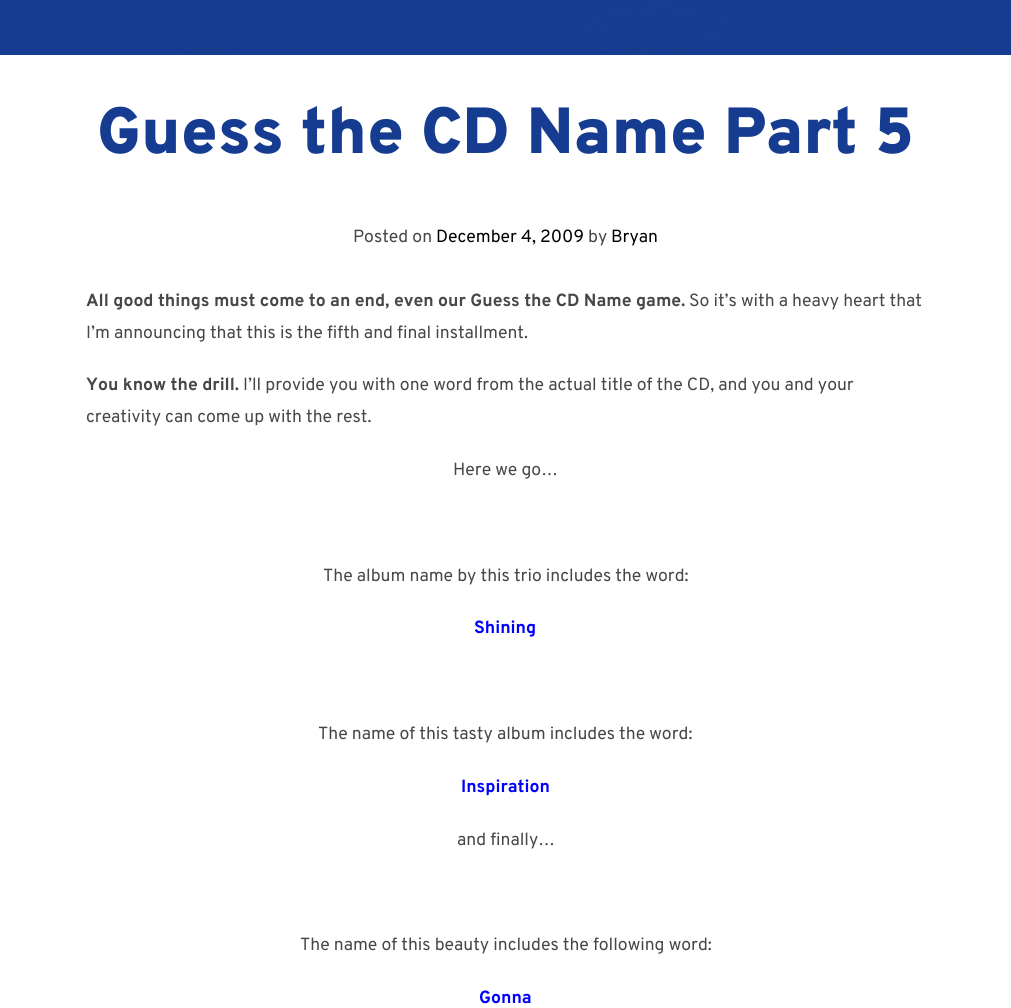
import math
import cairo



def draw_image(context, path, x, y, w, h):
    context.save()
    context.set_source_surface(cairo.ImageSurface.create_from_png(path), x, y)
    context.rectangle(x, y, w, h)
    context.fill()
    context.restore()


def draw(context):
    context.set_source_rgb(21 / 255, 60 / 255, 145 / 255)
    context.paint()
    draw_image(context, "images/1.png", 0, 0, 1011, 55)
    context.set_source_rgba(21 / 255, 60 / 255, 145 / 255, 0.95)
    context.rectangle(0, 0, 1011, 55)
    context.fill()
    context.set_source_rgb(1, 1, 1)
    context.rectangle(0, 55, 1011, 953)
    context.fill()
    context.select_font_face("Overpass Black")
    context.set_font_size(65.1)
    context.set_source_rgb(21 / 255, 60 / 255, 145 / 255)
    context.move_to(97, 153)
    context.show_text("Guess the CD Name Part 5")
    context.select_font_face("Overpass")
    context.set_font_size(17.6)
    context.set_source_rgb(71 / 255, 71 / 255, 71 / 255)
    context.move_to(353, 242)
    context.show_text("Posted on")
    context.set_source_rgb(0, 0, 0)
    context.move_to(436, 242)
    context.show_text("December 4, 2009")
    context.set_source_rgb(71 / 255, 71 / 255, 71 / 255)
    context.move_to(588, 242)
    context.show_text("by")
    context.set_source_rgb(0, 0, 0)
    context.move_to(611, 242)
    context.show_text("Bryan")
    context.select_font_face("Overpass", cairo.FontSlant.NORMAL, cairo.FontWeight.BOLD)
    context.set_source_rgb(71 / 255, 71 / 255, 71 / 255)
    context.move_to(86, 306)
    context.show_text("All good things must come to an end, even our Guess the CD Name game.")
    context.select_font_face("Overpass")
    context.move_to(689, 306)
    context.show_text("So it’s with a heavy heart that")
    context.move_to(86, 338)
    context.show_text("I’m announcing that this is the fifth and final installment.")
    context.select_font_face("Overpass", cairo.FontSlant.NORMAL, cairo.FontWeight.BOLD)
    context.move_to(86, 390)
    context.show_text("You know the drill.")
    context.select_font_face("Overpass")
    context.move_to(243, 390)
    context.show_text("I’ll provide you with one word from the actual title of the CD, and you and your")
    context.move_to(86, 422)
    context.show_text("creativity can come up with the rest.")
    context.move_to(453, 475)
    context.show_text("Here we go…")
    context.move_to(323, 581)
    context.show_text("The album name by this trio includes the word:")
    context.select_font_face("Overpass", cairo.FontSlant.NORMAL, cairo.FontWeight.BOLD)
    context.set_source_rgb(0, 0, 1)
    context.move_to(474, 633)
    context.show_text("Shining")
    context.select_font_face("Overpass")
    context.set_source_rgb(71 / 255, 71 / 255, 71 / 255)
    context.move_to(318, 739)
    context.show_text("The name of this tasty album includes the word:")
    context.select_font_face("Overpass", cairo.FontSlant.NORMAL, cairo.FontWeight.BOLD)
    context.set_source_rgb(0, 0, 1)
    context.move_to(461, 792)
    context.show_text("Inspiration")
    context.select_font_face("Overpass")
    context.set_source_rgb(71 / 255, 71 / 255, 71 / 255)
    context.move_to(457, 845)
    context.show_text("and finally…")
    context.move_to(300, 950)
    context.show_text("The name of this beauty includes the following word:")
    context.select_font_face("Overpass", cairo.FontSlant.NORMAL, cairo.FontWeight.BOLD)
    context.set_source_rgb(0, 0, 1)
    context.move_to(479, 1003)
    context.show_text("Gonna")


surface = cairo.ImageSurface(cairo.Format.RGB24, 1011, 1008)
context = cairo.Context(surface)
options = cairo.FontOptions()
options.set_hint_metrics(cairo.HintMetrics.OFF)
options.set_hint_style(cairo.HintStyle.NONE)
context.set_font_options(options)
context.set_miter_limit(4)
draw(context)
surface.write_to_png("out.png")
